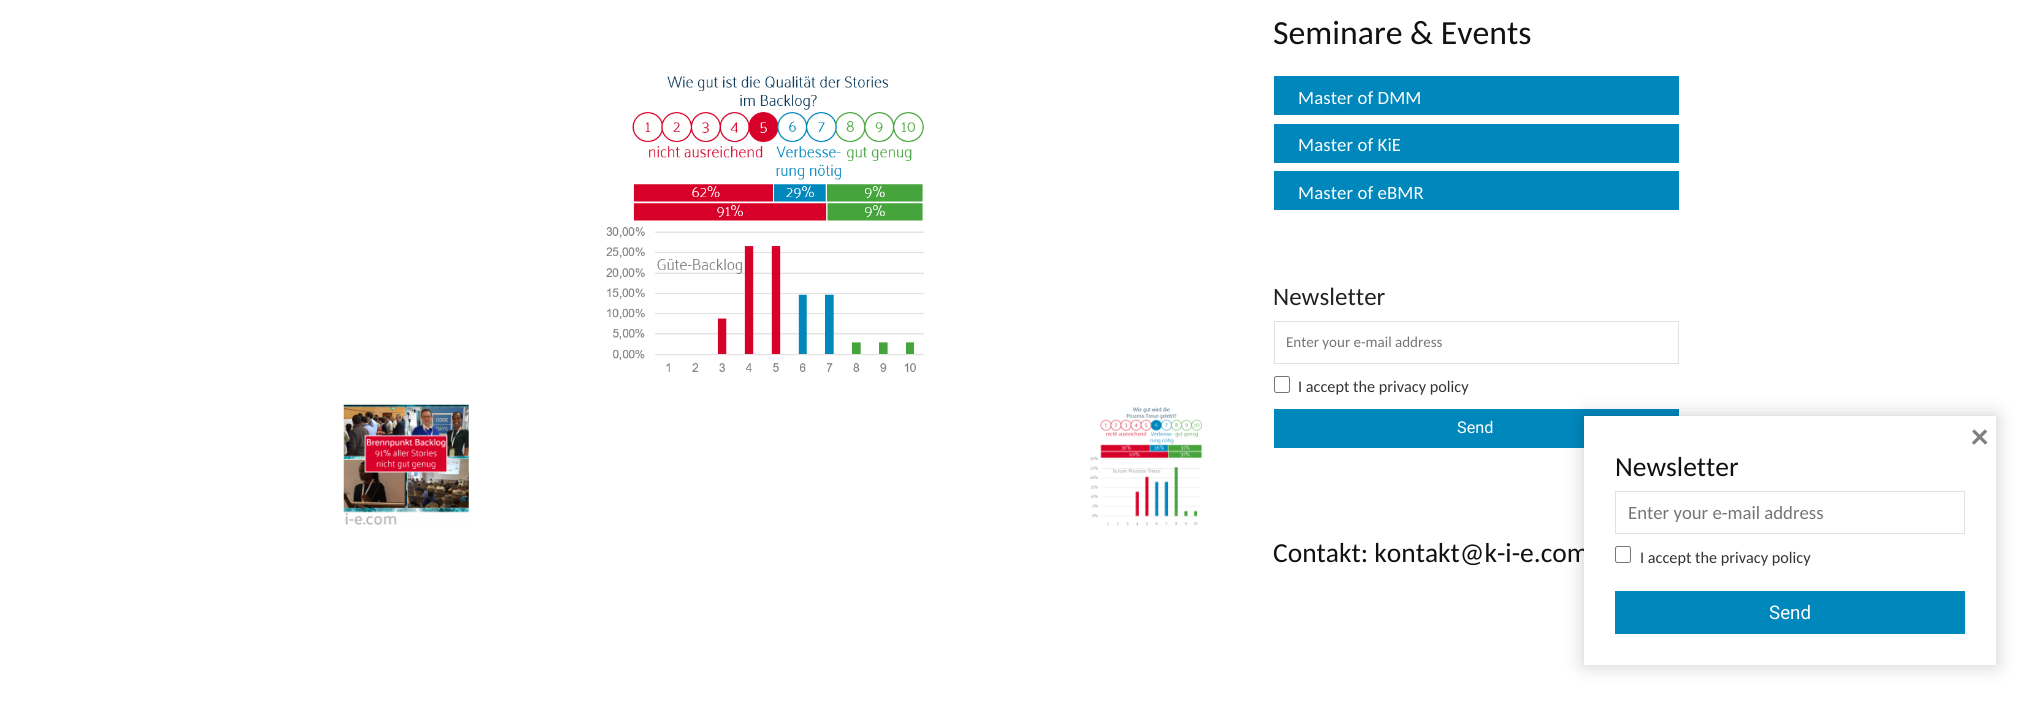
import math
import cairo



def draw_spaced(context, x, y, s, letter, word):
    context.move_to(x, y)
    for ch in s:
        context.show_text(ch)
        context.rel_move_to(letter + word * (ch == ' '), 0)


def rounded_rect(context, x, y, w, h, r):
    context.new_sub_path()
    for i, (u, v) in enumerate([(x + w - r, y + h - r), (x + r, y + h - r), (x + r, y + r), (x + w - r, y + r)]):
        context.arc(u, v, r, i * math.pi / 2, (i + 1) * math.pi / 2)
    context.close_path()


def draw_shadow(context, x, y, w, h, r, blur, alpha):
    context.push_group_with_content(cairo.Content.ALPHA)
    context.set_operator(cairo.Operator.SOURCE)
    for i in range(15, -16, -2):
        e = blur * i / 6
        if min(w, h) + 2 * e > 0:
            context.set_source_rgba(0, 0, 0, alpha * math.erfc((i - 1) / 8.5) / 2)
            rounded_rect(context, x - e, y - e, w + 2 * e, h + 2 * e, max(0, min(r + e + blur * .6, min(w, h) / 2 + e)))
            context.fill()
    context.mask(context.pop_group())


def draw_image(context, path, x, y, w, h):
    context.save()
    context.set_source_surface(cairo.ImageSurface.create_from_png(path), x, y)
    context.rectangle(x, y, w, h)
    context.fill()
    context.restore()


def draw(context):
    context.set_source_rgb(1, 1, 1)
    context.paint()
    draw_image(context, "images/1.png", 606, 76, 318, 296)
    draw_image(context, "images/2.png", 343, 404, 126, 121)
    draw_image(context, "images/3.png", 1089, 407, 114, 119)
    context.set_source_rgb(0, 135 / 255, 188 / 255)
    context.rectangle(1274, 76, 405, 39)
    context.fill()
    context.rectangle(1274, 124, 405, 39)
    context.fill()
    context.rectangle(1274, 171, 405, 39)
    context.fill()
    context.rectangle(1274.5, 321.5, 404, 42)
    context.set_source_rgb(225 / 255, 225 / 255, 225 / 255)
    context.set_line_width(1)
    context.stroke()
    rounded_rect(context, 1274.5, 376.5, 15, 16, 2)
    context.set_source_rgb(118 / 255, 118 / 255, 118 / 255)
    context.stroke()
    context.set_source_rgb(0, 135 / 255, 188 / 255)
    context.rectangle(1274, 409, 405, 39)
    context.fill()
    context.set_source_rgb(0, 0, 0)
    draw_shadow(context, 1584, 416, 412, 249, 0, 9.5, 0.2)
    context.select_font_face("Carlito")
    context.set_font_size(33.75)
    context.set_source_rgb(17 / 255, 17 / 255, 17 / 255)
    context.move_to(1273, 44)
    context.show_text("Seminare & Events")
    context.set_font_size(18.75)
    context.set_source_rgb(1, 1, 1)
    draw_spaced(context, 1298, 104, "Master of DMM", 0.1, 0)
    draw_spaced(context, 1298, 151, "Master of KiE", 0.1, 0)
    draw_spaced(context, 1298, 199, "Master of eBMR", 0.1, 0)
    context.set_font_size(25)
    context.set_source_rgb(34 / 255, 34 / 255, 34 / 255)
    context.move_to(1273, 305)
    context.show_text("Newsletter")
    context.set_font_size(15)
    context.set_source_rgb(117 / 255, 117 / 255, 117 / 255)
    context.move_to(1286, 347)
    context.show_text("Enter your e-mail address")
    context.set_font_size(16.25)
    context.set_source_rgb(51 / 255, 51 / 255, 51 / 255)
    context.move_to(1298, 392)
    context.show_text("I accept the privacy policy")
    context.select_font_face("Roboto")
    context.set_source_rgb(1, 1, 1)
    context.move_to(1457, 433)
    context.show_text("Send")
    context.select_font_face("Carlito")
    context.set_font_size(27.5)
    context.set_source_rgb(17 / 255, 17 / 255, 17 / 255)
    context.move_to(1273, 562)
    context.show_text("Contakt: kontakt@k-i-e.com")
    context.set_source_rgb(1, 1, 1)
    context.rectangle(1584, 416, 412, 249)
    context.fill()
    context.select_font_face("Carlito", cairo.FontSlant.NORMAL, cairo.FontWeight.BOLD)
    context.set_font_size(35)
    context.set_source_rgb(128 / 255, 128 / 255, 128 / 255)
    context.move_to(1971, 448)
    context.show_text("×")
    context.select_font_face("Carlito")
    context.set_font_size(27.5)
    context.set_source_rgb(17 / 255, 17 / 255, 17 / 255)
    context.move_to(1615, 476)
    context.show_text("Newsletter")
    context.rectangle(1615.5, 491.5, 349, 42)
    context.set_source_rgb(225 / 255, 225 / 255, 225 / 255)
    context.stroke()
    context.set_font_size(18.75)
    context.set_source_rgb(117 / 255, 117 / 255, 117 / 255)
    context.move_to(1628, 519)
    context.show_text("Enter your e-mail address")
    rounded_rect(context, 1615.5, 546.5, 15, 16, 2)
    context.set_source_rgb(118 / 255, 118 / 255, 118 / 255)
    context.stroke()
    context.set_font_size(16.25)
    context.set_source_rgb(51 / 255, 51 / 255, 51 / 255)
    context.move_to(1640, 563)
    context.show_text("I accept the privacy policy")
    context.set_source_rgb(0, 135 / 255, 188 / 255)
    context.rectangle(1615, 591, 350, 43)
    context.fill()
    context.select_font_face("Roboto")
    context.set_font_size(18.75)
    context.set_source_rgb(1, 1, 1)
    context.move_to(1769, 619)
    context.show_text("Send")


surface = cairo.ImageSurface(cairo.Format.RGB24, 2021, 727)
context = cairo.Context(surface)
options = cairo.FontOptions()
options.set_hint_metrics(cairo.HintMetrics.OFF)
options.set_hint_style(cairo.HintStyle.NONE)
context.set_font_options(options)
context.set_miter_limit(4)
draw(context)
surface.write_to_png("out.png")
